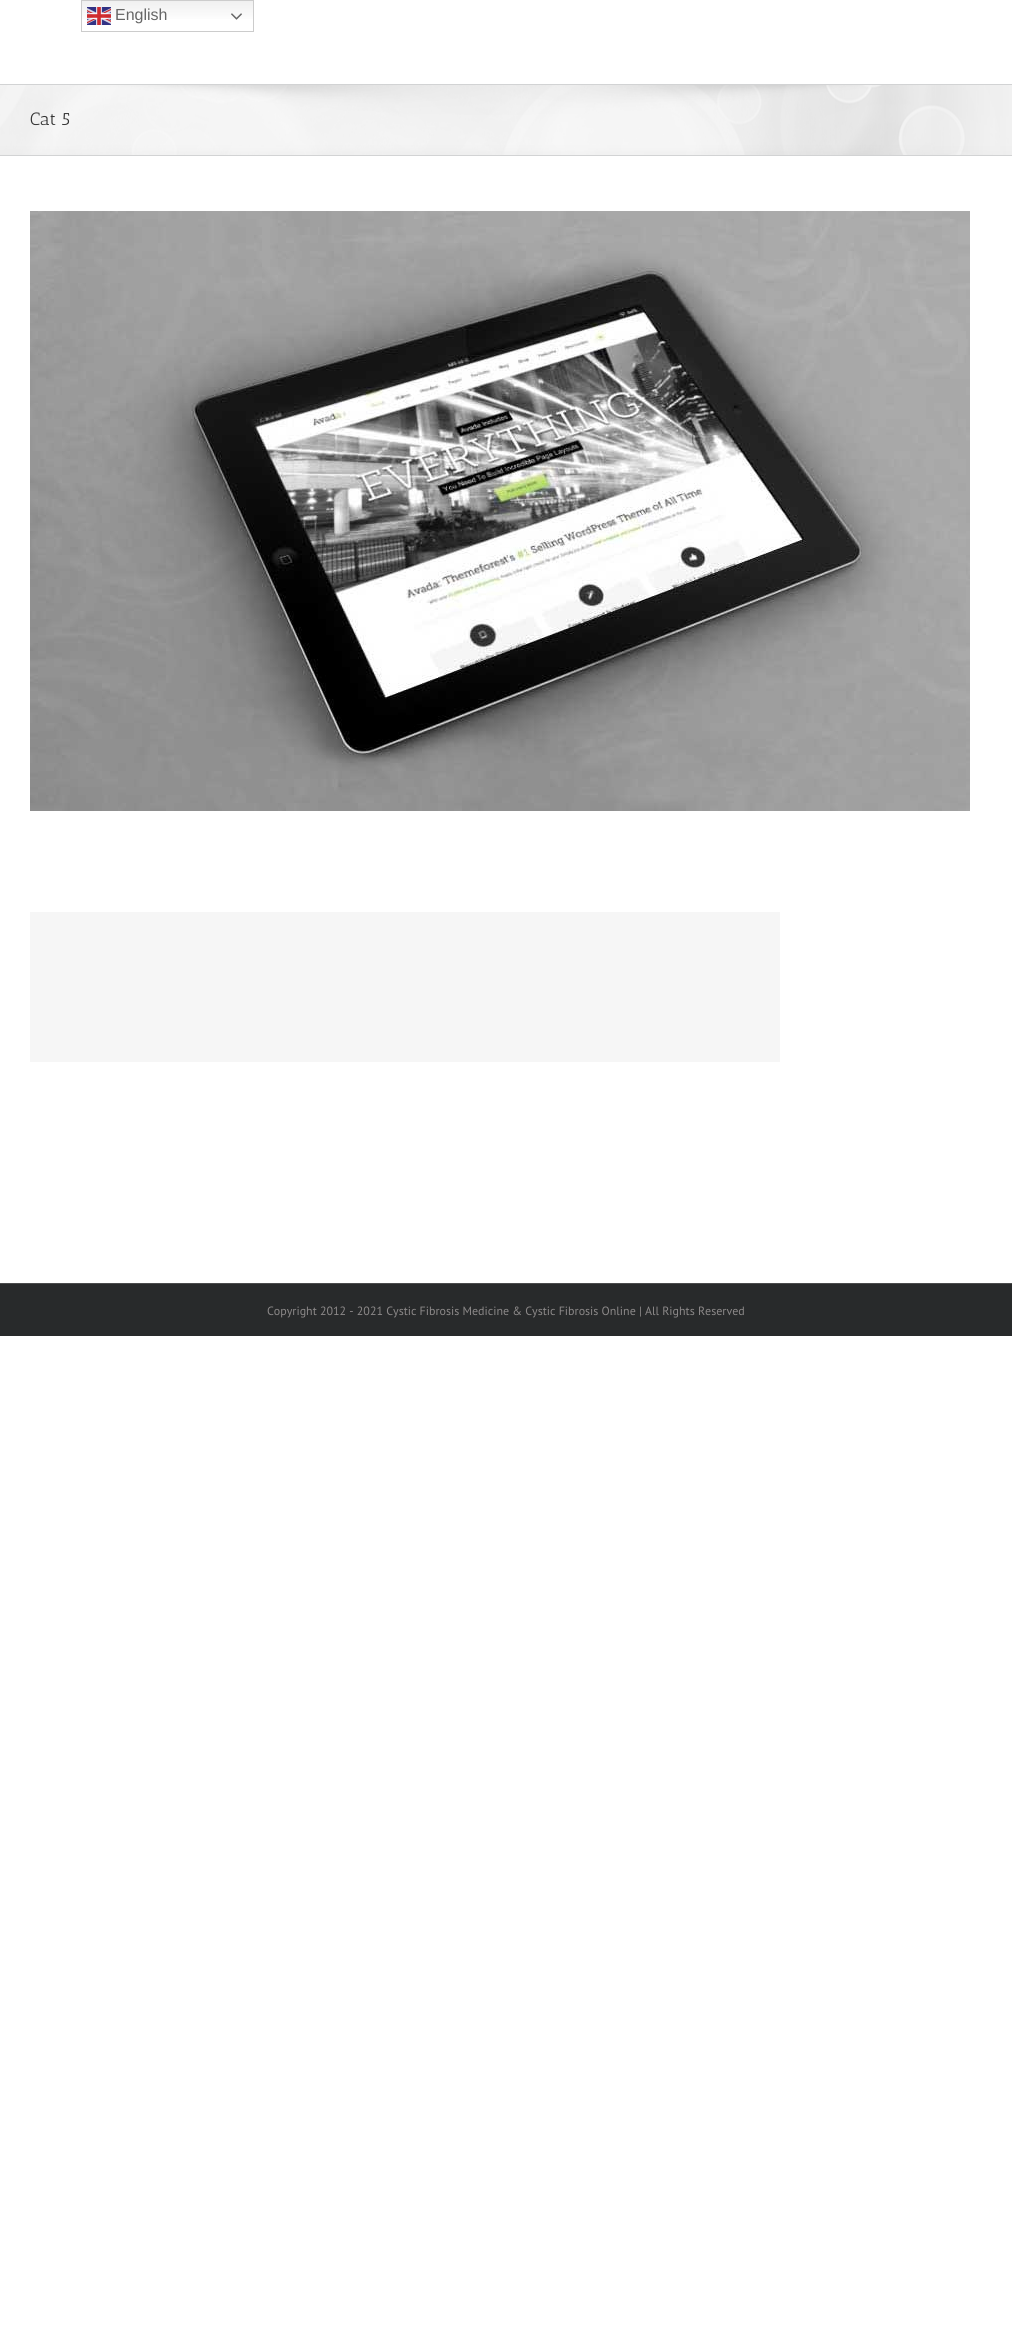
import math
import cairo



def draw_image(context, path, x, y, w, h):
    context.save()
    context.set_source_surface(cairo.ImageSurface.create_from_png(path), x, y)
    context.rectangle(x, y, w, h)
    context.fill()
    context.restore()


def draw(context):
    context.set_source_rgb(1, 1, 1)
    context.paint()
    gradient = cairo.LinearGradient(168, 0, 168, 32)
    gradient.add_color_stop_rgba(0, 239 / 255, 239 / 255, 239 / 255, 1)
    gradient.add_color_stop_rgba(0.7, 1, 1, 1, 1)
    context.set_source(gradient)
    context.rectangle(82, 1, 171, 18)
    context.fill()
    context.rectangle(81.5, 0.5, 172, 31)
    context.set_source_rgb(204 / 255, 204 / 255, 204 / 255)
    context.set_line_width(1)
    context.stroke()
    draw_image(context, "images/1.png", 87, 7, 24, 18)
    draw_image(context, "images/2.png", 231, 13, 11, 7)
    context.set_source_rgb(246 / 255, 246 / 255, 246 / 255)
    context.rectangle(0, 85, 1012, 70)
    context.fill()
    draw_image(context, "images/3.png", 0, 85, 1012, 70)
    context.set_source_rgb(210 / 255, 211 / 255, 212 / 255)
    context.rectangle(0, 84, 1012, 1)
    context.fill()
    context.rectangle(0, 155, 1012, 1)
    context.fill()
    draw_image(context, "images/4.png", 30, 211, 940, 600)
    context.set_source_rgb(246 / 255, 246 / 255, 246 / 255)
    context.rectangle(30, 912, 750, 150)
    context.fill()
    context.set_source_rgb(40 / 255, 42 / 255, 43 / 255)
    context.rectangle(0, 1284, 1012, 52)
    context.fill()
    context.set_source_rgb(75 / 255, 76 / 255, 77 / 255)
    context.rectangle(0, 1283, 1012, 1)
    context.fill()
    context.select_font_face("Liberation Sans")
    context.set_font_size(16)
    context.set_source_rgb(102 / 255, 102 / 255, 102 / 255)
    context.move_to(115, 20)
    context.show_text("English")
    context.select_font_face("Antic Slab")
    context.set_font_size(18)
    context.set_source_rgb(51 / 255, 51 / 255, 51 / 255)
    context.move_to(30, 125)
    context.show_text("Cat 5")
    context.select_font_face("PT Sans")
    context.set_font_size(12)
    context.set_source_rgb(140 / 255, 137 / 255, 137 / 255)
    context.move_to(267, 1315)
    context.show_text("Copyright 2012 - 2021 Cystic Fibrosis Medicine & Cystic Fibrosis Online | All Rights Reserved")


surface = cairo.ImageSurface(cairo.Format.RGB24, 1012, 2328)
context = cairo.Context(surface)
options = cairo.FontOptions()
options.set_hint_metrics(cairo.HintMetrics.OFF)
options.set_hint_style(cairo.HintStyle.NONE)
context.set_font_options(options)
context.set_miter_limit(4)
draw(context)
surface.write_to_png("out.png")
